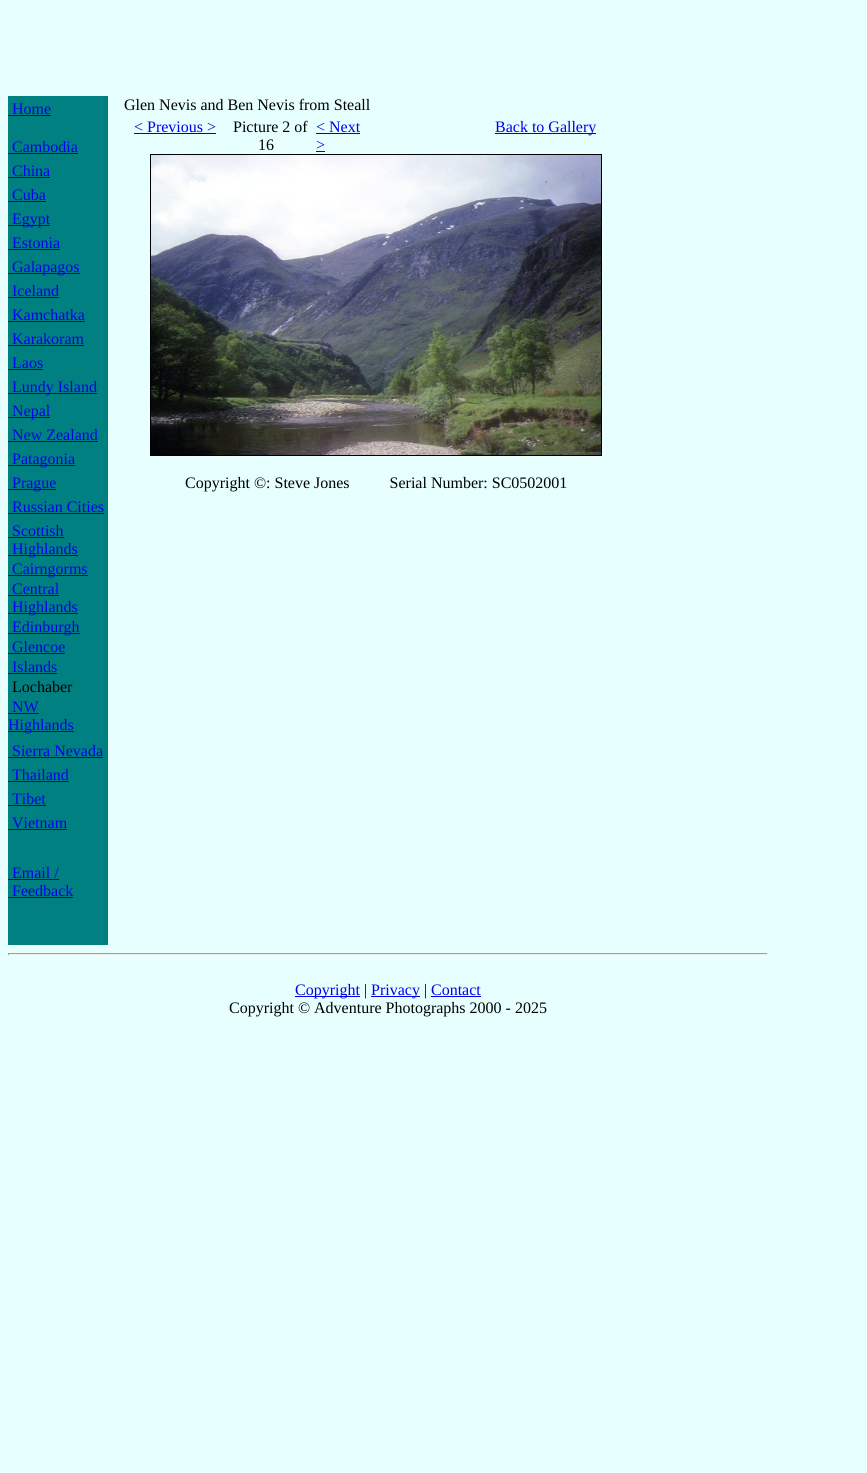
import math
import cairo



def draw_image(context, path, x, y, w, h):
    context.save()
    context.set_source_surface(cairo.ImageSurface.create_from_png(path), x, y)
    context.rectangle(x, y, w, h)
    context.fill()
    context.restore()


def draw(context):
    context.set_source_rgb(231 / 255, 1, 1)
    context.paint()
    context.set_source_rgb(0, 128 / 255, 128 / 255)
    context.rectangle(8, 96, 100, 849)
    context.fill()
    context.set_source_rgb(0, 0, 238 / 255)
    context.rectangle(8, 115, 43, 1)
    context.fill()
    context.rectangle(8, 153, 70, 1)
    context.fill()
    context.rectangle(8, 177, 42, 1)
    context.fill()
    context.rectangle(8, 201, 38, 1)
    context.fill()
    context.rectangle(8, 225, 42, 1)
    context.fill()
    context.rectangle(8, 249, 52, 1)
    context.fill()
    context.rectangle(8, 273, 72, 1)
    context.fill()
    context.rectangle(8, 297, 51, 1)
    context.fill()
    context.rectangle(8, 321, 77, 1)
    context.fill()
    context.rectangle(8, 345, 76, 1)
    context.fill()
    context.rectangle(8, 369, 35, 1)
    context.fill()
    context.rectangle(8, 393, 89, 1)
    context.fill()
    context.rectangle(8, 417, 42, 1)
    context.fill()
    context.rectangle(8, 441, 90, 1)
    context.fill()
    context.rectangle(8, 465, 67, 1)
    context.fill()
    context.rectangle(8, 489, 48, 1)
    context.fill()
    context.rectangle(8, 513, 96, 1)
    context.fill()
    context.rectangle(8, 537, 56, 1)
    context.fill()
    context.rectangle(8, 555, 70, 1)
    context.fill()
    context.rectangle(8, 575, 80, 1)
    context.fill()
    context.rectangle(8, 595, 51, 1)
    context.fill()
    context.rectangle(8, 613, 70, 1)
    context.fill()
    context.rectangle(8, 633, 72, 1)
    context.fill()
    context.rectangle(8, 653, 57, 1)
    context.fill()
    context.rectangle(8, 673, 49, 1)
    context.fill()
    context.rectangle(8, 713, 31, 1)
    context.fill()
    context.rectangle(8, 731, 66, 1)
    context.fill()
    context.rectangle(8, 757, 95, 1)
    context.fill()
    context.rectangle(8, 781, 61, 1)
    context.fill()
    context.rectangle(8, 805, 38, 1)
    context.fill()
    context.rectangle(8, 829, 59, 1)
    context.fill()
    context.rectangle(8, 879, 51, 1)
    context.fill()
    context.rectangle(8, 897, 65, 1)
    context.fill()
    context.rectangle(134, 133, 82, 1)
    context.fill()
    context.rectangle(316, 133, 44, 1)
    context.fill()
    context.rectangle(316, 151, 9, 1)
    context.fill()
    context.rectangle(495, 133, 101, 1)
    context.fill()
    context.rectangle(150.5, 154.5, 451, 301)
    context.set_source_rgb(0, 0, 0)
    context.set_line_width(1)
    context.stroke()
    draw_image(context, "images/1.png", 151, 155, 450, 300)
    context.set_source_rgb(159 / 255, 159 / 255, 159 / 255)
    context.rectangle(8, 953, 760, 1)
    context.fill()
    context.set_source_rgb(238 / 255, 238 / 255, 238 / 255)
    context.rectangle(767, 953, 1, 2)
    context.fill()
    context.rectangle(8, 954, 760, 1)
    context.fill()
    context.set_source_rgb(159 / 255, 159 / 255, 159 / 255)
    context.rectangle(8, 953, 1, 2)
    context.fill()
    context.set_source_rgb(0, 0, 238 / 255)
    context.rectangle(295, 996, 65, 1)
    context.fill()
    context.rectangle(371, 996, 49, 1)
    context.fill()
    context.rectangle(431, 996, 50, 1)
    context.fill()
    context.select_font_face("Liberation Serif")
    context.set_font_size(16)
    context.move_to(12, 114)
    context.show_text("Home")
    context.move_to(12, 152)
    context.show_text("Cambodia")
    context.move_to(12, 176)
    context.show_text("China")
    context.move_to(12, 200)
    context.show_text("Cuba")
    context.move_to(12, 224)
    context.show_text("Egypt")
    context.move_to(12, 248)
    context.show_text("Estonia")
    context.move_to(12, 272)
    context.show_text("Galapagos")
    context.move_to(12, 296)
    context.show_text("Iceland")
    context.move_to(12, 320)
    context.show_text("Kamchatka")
    context.move_to(12, 344)
    context.show_text("Karakoram")
    context.move_to(12, 368)
    context.show_text("Laos")
    context.move_to(12, 392)
    context.show_text("Lundy Island")
    context.move_to(12, 416)
    context.show_text("Nepal")
    context.move_to(12, 440)
    context.show_text("New Zealand")
    context.move_to(12, 464)
    context.show_text("Patagonia")
    context.move_to(12, 488)
    context.show_text("Prague")
    context.move_to(12, 512)
    context.show_text("Russian Cities")
    context.move_to(12, 536)
    context.show_text("Scottish")
    context.move_to(12, 554)
    context.show_text("Highlands")
    context.move_to(12, 574)
    context.show_text("Cairngorms")
    context.move_to(12, 594)
    context.show_text("Central")
    context.move_to(12, 612)
    context.show_text("Highlands")
    context.move_to(12, 632)
    context.show_text("Edinburgh")
    context.move_to(12, 652)
    context.show_text("Glencoe")
    context.move_to(12, 672)
    context.show_text("Islands")
    context.set_source_rgb(0, 0, 0)
    context.move_to(12, 692)
    context.show_text("Lochaber")
    context.set_source_rgb(0, 0, 238 / 255)
    context.move_to(12, 712)
    context.show_text("NW")
    context.move_to(8, 730)
    context.show_text("Highlands")
    context.move_to(12, 756)
    context.show_text("Sierra Nevada")
    context.move_to(12, 780)
    context.show_text("Thailand")
    context.move_to(12, 804)
    context.show_text("Tibet")
    context.move_to(12, 828)
    context.show_text("Vietnam")
    context.move_to(12, 878)
    context.show_text("Email /")
    context.move_to(12, 896)
    context.show_text("Feedback")
    context.set_source_rgb(0, 0, 0)
    context.move_to(124, 110)
    context.show_text("Glen Nevis and Ben Nevis from Steall")
    context.set_source_rgb(0, 0, 238 / 255)
    context.move_to(134, 132)
    context.show_text("< Previous >")
    context.set_source_rgb(0, 0, 0)
    context.move_to(233, 132)
    context.show_text("Picture 2 of")
    context.move_to(258, 150)
    context.show_text("16")
    context.set_source_rgb(0, 0, 238 / 255)
    context.move_to(316, 132)
    context.show_text("< Next")
    context.move_to(316, 150)
    context.show_text(">")
    context.move_to(495, 132)
    context.show_text("Back to Gallery")
    context.set_source_rgb(0, 0, 0)
    context.move_to(185, 488)
    context.show_text("Copyright ©: Steve Jones          Serial Number: SC0502001")
    context.set_source_rgb(0, 0, 238 / 255)
    context.move_to(295, 995)
    context.show_text("Copyright")
    context.set_source_rgb(0, 0, 0)
    context.move_to(364, 995)
    context.show_text("|")
    context.set_source_rgb(0, 0, 238 / 255)
    context.move_to(371, 995)
    context.show_text("Privacy")
    context.set_source_rgb(0, 0, 0)
    context.move_to(424, 995)
    context.show_text("|")
    context.set_source_rgb(0, 0, 238 / 255)
    context.move_to(431, 995)
    context.show_text("Contact")
    context.set_source_rgb(0, 0, 0)
    context.move_to(229, 1013)
    context.show_text("Copyright © Adventure Photographs 2000 - 2025")


surface = cairo.ImageSurface(cairo.Format.RGB24, 867, 1473)
context = cairo.Context(surface)
options = cairo.FontOptions()
options.set_hint_metrics(cairo.HintMetrics.OFF)
options.set_hint_style(cairo.HintStyle.NONE)
context.set_font_options(options)
context.set_miter_limit(4)
draw(context)
surface.write_to_png("out.png")
